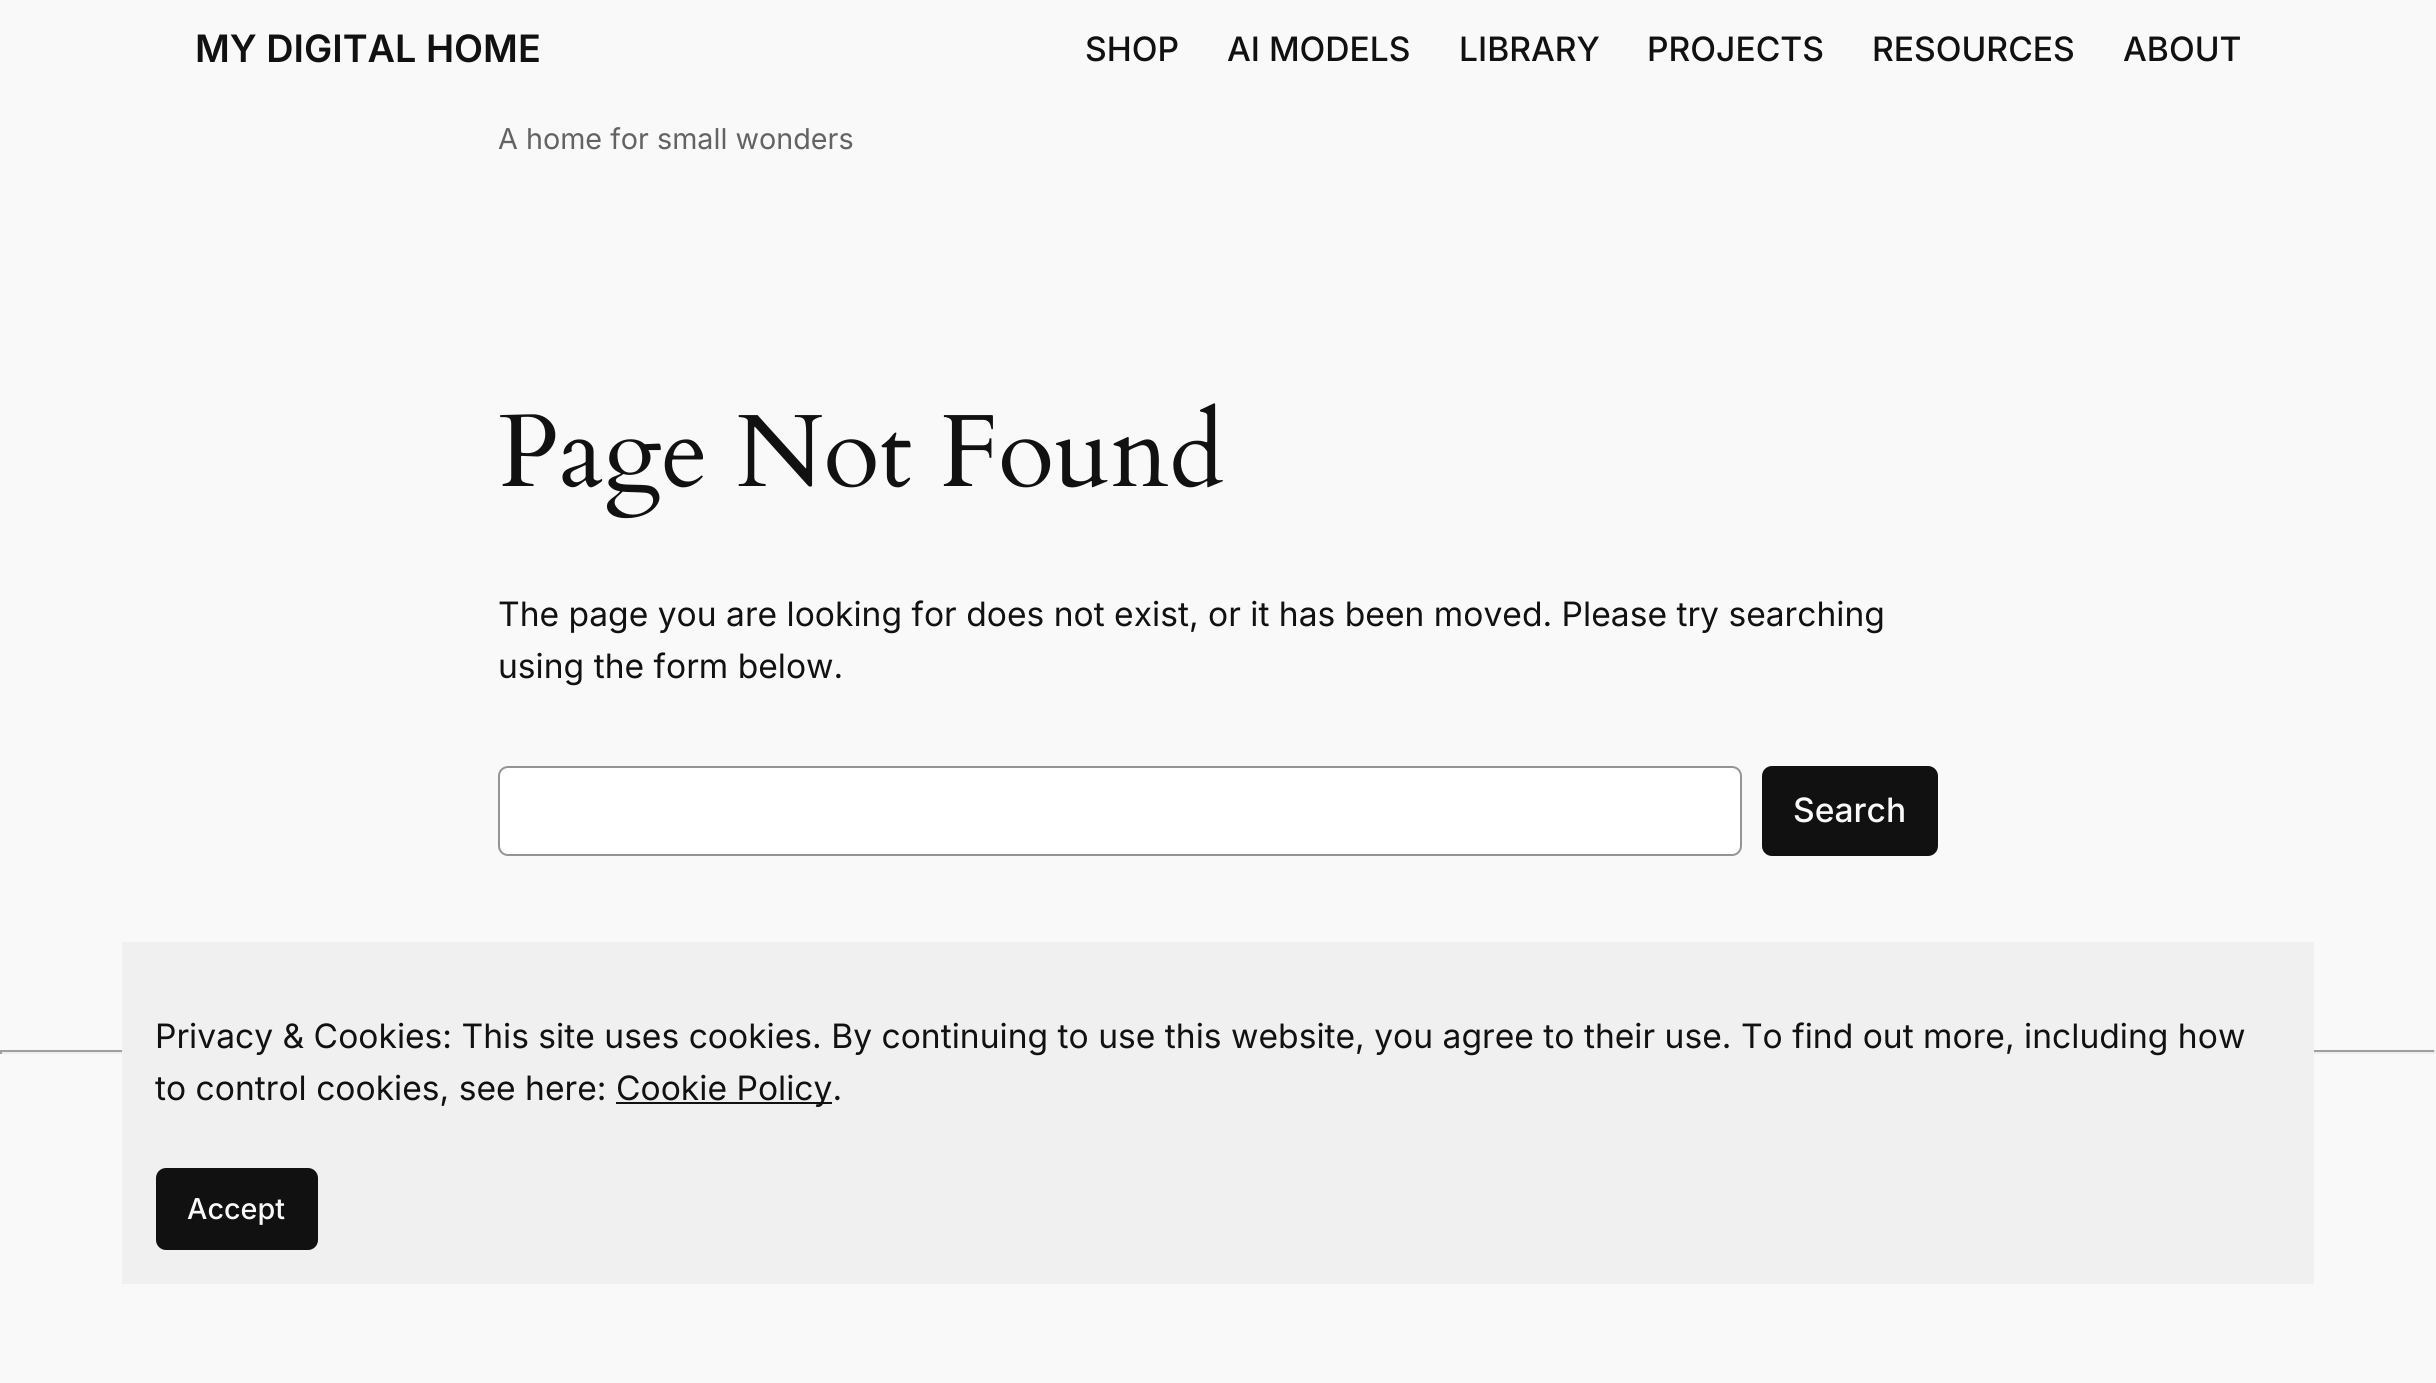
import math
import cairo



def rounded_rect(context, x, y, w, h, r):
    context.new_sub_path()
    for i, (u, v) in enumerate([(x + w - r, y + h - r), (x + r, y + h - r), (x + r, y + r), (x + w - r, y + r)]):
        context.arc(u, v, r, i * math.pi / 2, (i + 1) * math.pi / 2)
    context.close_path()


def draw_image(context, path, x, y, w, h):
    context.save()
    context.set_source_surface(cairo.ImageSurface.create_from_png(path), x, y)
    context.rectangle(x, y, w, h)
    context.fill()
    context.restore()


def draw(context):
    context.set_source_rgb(249 / 255, 249 / 255, 249 / 255)
    context.paint()
    draw_image(context, "images/1.png", 500, 403, 723, 116)
    context.set_source_rgb(1, 1, 1)
    rounded_rect(context, 499, 767, 1242, 88, 9)
    context.fill_preserve()
    context.set_source_rgb(148 / 255, 148 / 255, 148 / 255)
    context.stroke()
    context.set_source_rgb(17 / 255, 17 / 255, 17 / 255)
    rounded_rect(context, 1762, 766, 176, 90, 10)
    context.fill()
    context.set_source_rgb(159 / 255, 159 / 255, 159 / 255)
    context.rectangle(0, 1050, 2436, 2)
    context.fill()
    context.set_source_rgb(238 / 255, 238 / 255, 238 / 255)
    context.rectangle(2434, 1050, 2, 4)
    context.fill()
    context.rectangle(0, 1052, 2436, 2)
    context.fill()
    context.set_source_rgb(240 / 255, 240 / 255, 240 / 255)
    context.rectangle(122, 942, 2192, 342)
    context.fill()
    context.set_source_rgb(17 / 255, 17 / 255, 17 / 255)
    context.rectangle(616, 1102, 216, 2)
    context.fill()
    rounded_rect(context, 156, 1168, 162, 82, 10)
    context.fill()
    context.set_source_rgb(159 / 255, 159 / 255, 159 / 255)
    context.rectangle(0, 1050, 2, 4)
    context.fill()
    context.select_font_face("Inter SemiBold")
    context.set_font_size(37.75)
    context.set_source_rgb(17 / 255, 17 / 255, 17 / 255)
    context.move_to(195, 62)
    context.show_text("MY DIGITAL HOME")
    context.select_font_face("Inter Medium")
    context.set_font_size(33.6)
    context.move_to(1085, 61)
    context.show_text("SHOP")
    context.move_to(1227, 61)
    context.show_text("AI MODELS")
    context.move_to(1459, 61)
    context.show_text("LIBRARY")
    context.move_to(1647, 61)
    context.show_text("PROJECTS")
    context.move_to(1872, 61)
    context.show_text("RESOURCES")
    context.move_to(2123, 61)
    context.show_text("ABOUT")
    context.select_font_face("Inter")
    context.set_font_size(28.75)
    context.set_source_rgb(99 / 255, 99 / 255, 99 / 255)
    context.move_to(498, 149)
    context.show_text("A home for small wonders")
    context.set_font_size(33.6)
    context.set_source_rgb(17 / 255, 17 / 255, 17 / 255)
    context.move_to(498, 626)
    context.show_text("The page you are looking for does not exist, or it has been moved. Please try searching")
    context.move_to(498, 678)
    context.show_text("using the form below.")
    context.select_font_face("Inter Medium")
    context.set_source_rgb(249 / 255, 249 / 255, 249 / 255)
    context.move_to(1793, 822)
    context.show_text("Search")
    context.select_font_face("Inter")
    context.set_source_rgb(17 / 255, 17 / 255, 17 / 255)
    context.move_to(155, 1048)
    context.show_text("Privacy & Cookies: This site uses cookies. By continuing to use this website, you agree to their use. To find out more, including how")
    context.move_to(155, 1100)
    context.show_text("to control cookies, see here:")
    context.move_to(616, 1100)
    context.show_text("Cookie Policy.")
    context.select_font_face("Inter Medium")
    context.set_font_size(28.75)
    context.set_source_rgb(249 / 255, 249 / 255, 249 / 255)
    context.move_to(187, 1219)
    context.show_text("Accept")


surface = cairo.ImageSurface(cairo.Format.RGB24, 2436, 1383)
context = cairo.Context(surface)
options = cairo.FontOptions()
options.set_hint_metrics(cairo.HintMetrics.OFF)
options.set_hint_style(cairo.HintStyle.NONE)
context.set_font_options(options)
context.set_miter_limit(4)
draw(context)
surface.write_to_png("out.png")
